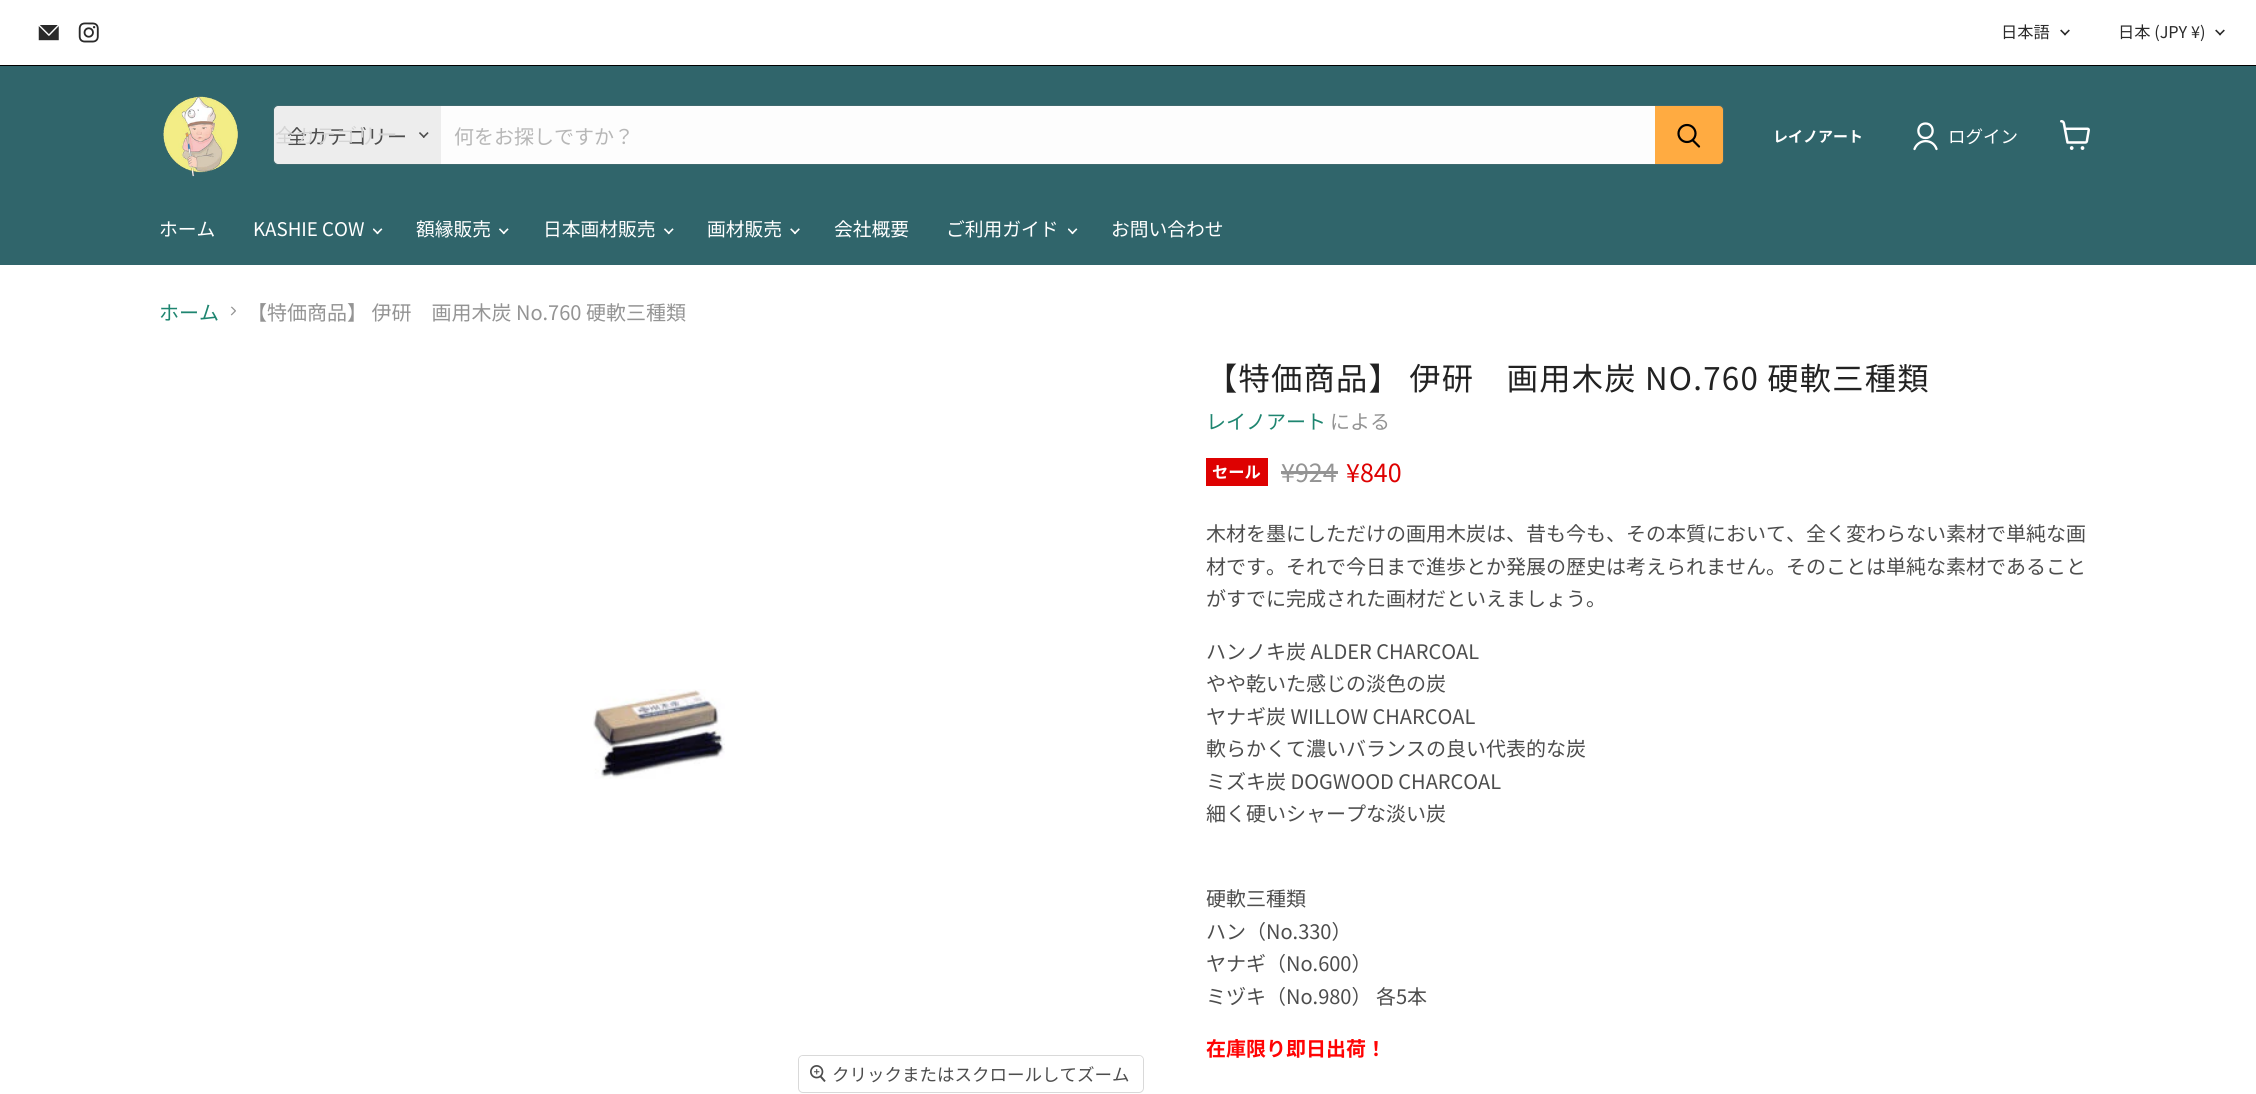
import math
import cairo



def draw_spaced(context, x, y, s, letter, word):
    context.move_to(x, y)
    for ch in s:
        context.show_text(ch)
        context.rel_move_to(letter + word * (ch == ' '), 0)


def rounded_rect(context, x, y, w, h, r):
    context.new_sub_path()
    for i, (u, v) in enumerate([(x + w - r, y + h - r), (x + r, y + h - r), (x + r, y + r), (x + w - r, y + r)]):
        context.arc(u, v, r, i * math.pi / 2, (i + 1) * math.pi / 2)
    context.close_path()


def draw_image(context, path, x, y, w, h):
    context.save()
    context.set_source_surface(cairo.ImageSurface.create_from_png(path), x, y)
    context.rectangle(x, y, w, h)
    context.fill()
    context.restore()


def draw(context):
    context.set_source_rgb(1, 1, 1)
    context.paint()
    context.set_source_rgb(0, 0, 0)
    context.rectangle(0, 65, 2256, 1)
    context.fill()
    draw_image(context, "images/1.png", 38, 25, 21, 16)
    draw_image(context, "images/2.png", 78, 22, 21, 21)
    draw_image(context, "images/3.png", 2060, 29, 10, 7)
    draw_image(context, "images/3.png", 2215, 29, 10, 7)
    context.set_source_rgb(48 / 255, 101 / 255, 107 / 255)
    context.rectangle(0, 66, 2256, 199)
    context.fill()
    draw_image(context, "images/4.png", 163, 96, 75, 81)
    rounded_rect(context, 273.5, 105.5, 1450, 59, 4.5)
    context.set_source_rgba(128 / 255, 128 / 255, 128 / 255, 0.2)
    context.set_line_width(1)
    context.stroke()
    context.set_source_rgb(237 / 255, 237 / 255, 237 / 255)
    context.new_path()
    context.move_to(278, 106)
    context.line_to(441, 106)
    context.line_to(441, 164)
    context.line_to(278, 164)
    context.curve_to(276, 164, 274, 162, 274, 160)
    context.line_to(274, 110)
    context.curve_to(274, 108, 276, 106, 278, 106)
    context.close_path()
    context.fill()
    draw_image(context, "images/5.png", 419, 132, 10, 6)
    context.set_source_rgb(253 / 255, 253 / 255, 253 / 255)
    context.rectangle(441, 106, 1214, 58)
    context.fill()
    context.set_source_rgb(1, 171 / 255, 65 / 255)
    context.new_path()
    context.move_to(1655.5, 106.5)
    context.line_to(1719, 106.5)
    context.curve_to(1721, 106.5, 1722.5, 108, 1722.5, 110)
    context.line_to(1722.5, 160)
    context.curve_to(1722.5, 162, 1721, 163.5, 1719, 163.5)
    context.line_to(1655.5, 163.5)
    context.close_path()
    context.fill_preserve()
    context.stroke()
    context.new_path()
    context.move_to(1699, 146.5)
    context.line_to(1693, 140.5)
    context.set_source_rgb(0, 0, 0)
    context.set_line_width(2.2)
    context.set_line_cap(cairo.LineCap.ROUND)
    context.stroke()
    context.arc(1687, 133.5, 8.5, 0, 2 * math.pi)
    context.set_line_cap(cairo.LineCap.BUTT)
    context.stroke()
    context.new_path()
    context.move_to(1925.5, 138)
    context.curve_to(1935, 138, 1935, 123.5, 1925.5, 123.5)
    context.curve_to(1916, 123.5, 1916, 138, 1925.5, 138)
    context.close_path()
    context.move_to(1936.5, 149)
    context.curve_to(1933, 138.5, 1918.5, 138.5, 1914.5, 149)
    context.set_source_rgb(1, 1, 1)
    context.set_line_width(2.3)
    context.set_line_cap(cairo.LineCap.ROUND)
    context.set_line_join(cairo.LineJoin.ROUND)
    context.stroke()
    draw_image(context, "images/6.png", 2060, 120, 30, 30)
    draw_image(context, "images/7.png", 373, 228, 10, 7)
    draw_image(context, "images/8.png", 499, 228, 10, 7)
    draw_image(context, "images/8.png", 664, 228, 10, 7)
    draw_image(context, "images/9.png", 790, 228, 10, 7)
    draw_image(context, "images/7.png", 1068, 228, 10, 7)
    draw_image(context, "images/10.png", 230, 306, 6, 10)
    context.set_source_rgb(222 / 255, 1 / 255, 1 / 255)
    context.rectangle(1206, 458, 62, 28)
    context.fill()
    context.set_source_rgb(148 / 255, 148 / 255, 148 / 255)
    context.rectangle(1281, 471, 57, 3)
    context.fill()
    draw_image(context, "images/11.png", 593, 689, 132, 90)
    rounded_rect(context, 798.5, 1055.5, 345, 37, 4.5)
    context.set_source_rgb(217 / 255, 217 / 255, 217 / 255)
    context.set_line_width(1)
    context.set_line_cap(cairo.LineCap.BUTT)
    context.set_line_join(cairo.LineJoin.MITER)
    context.stroke()
    context.set_source_rgba(1, 1, 1, 0.9)
    rounded_rect(context, 799, 1056, 344, 35, 4)
    context.fill()
    draw_image(context, "images/12.png", 810, 1065, 16, 17)
    context.select_font_face("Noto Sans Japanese")
    context.set_font_size(16.25)
    context.set_source_rgb(42 / 255, 42 / 255, 42 / 255)
    context.move_to(2001, 38)
    context.show_text("日本語")
    context.move_to(2118, 38)
    context.show_text("日本 (JPY ¥)")
    context.set_font_size(20)
    context.set_source_rgb(77 / 255, 77 / 255, 77 / 255)
    context.move_to(287, 144)
    context.show_text("全カテゴリー")
    context.select_font_face("WenQuanYi Zen Hei Medium")
    context.set_source_rgb(212 / 255, 212 / 255, 212 / 255)
    context.move_to(275, 142)
    context.show_text("全カテゴリー")
    context.select_font_face("Noto Sans Japanese")
    context.set_source_rgb(183 / 255, 183 / 255, 183 / 255)
    context.move_to(454, 144)
    context.show_text("何をお探しですか？")
    context.select_font_face("Noto Sans Japanese", cairo.FontSlant.NORMAL, cairo.FontWeight.BOLD)
    context.set_font_size(15)
    context.set_source_rgb(1, 1, 1)
    context.move_to(1773, 142)
    context.show_text("レイノアート")
    context.select_font_face("Noto Sans Japanese")
    context.set_font_size(17.5)
    context.move_to(1948, 143)
    context.show_text("ログイン")
    context.set_font_size(18.75)
    context.move_to(159, 236)
    context.show_text("ホーム")
    context.move_to(253, 236)
    context.show_text("KASHIE COW")
    context.move_to(416, 236)
    context.show_text("額縁販売")
    context.move_to(543, 236)
    context.show_text("日本画材販売")
    context.move_to(707, 236)
    context.show_text("画材販売")
    context.move_to(834, 236)
    context.show_text("会社概要")
    context.move_to(946, 236)
    context.show_text("ご利用ガイド")
    context.move_to(1111, 236)
    context.show_text("お問い合わせ")
    context.set_font_size(20)
    context.set_source_rgb(30 / 255, 133 / 255, 112 / 255)
    context.move_to(159, 320)
    context.show_text("ホーム")
    context.set_source_rgb(148 / 255, 148 / 255, 148 / 255)
    context.move_to(247, 320)
    context.show_text("【特価商品】 伊研　画用木炭 No.760 硬軟三種類")
    context.set_font_size(31.25)
    context.set_source_rgb(34 / 255, 34 / 255, 34 / 255)
    draw_spaced(context, 1206, 390, "【特価商品】 伊研　画用木炭 NO.760 硬軟三種類", 1.25, 0)
    context.set_font_size(20)
    context.set_source_rgb(30 / 255, 133 / 255, 112 / 255)
    context.move_to(1206, 429)
    context.show_text("レイノアート")
    context.set_source_rgb(148 / 255, 148 / 255, 148 / 255)
    context.move_to(1330, 429)
    context.show_text("による")
    context.select_font_face("Noto Sans Japanese", cairo.FontSlant.NORMAL, cairo.FontWeight.BOLD)
    context.set_font_size(16.25)
    context.set_source_rgb(1, 1, 1)
    context.move_to(1212, 478)
    context.show_text("セール")
    context.select_font_face("Noto Sans Japanese")
    context.set_font_size(25)
    context.set_source_rgb(148 / 255, 148 / 255, 148 / 255)
    context.move_to(1281, 482)
    context.show_text("¥924")
    context.set_source_rgb(222 / 255, 1 / 255, 1 / 255)
    context.move_to(1346, 482)
    context.show_text("¥840")
    context.set_font_size(20)
    context.set_source_rgb(77 / 255, 77 / 255, 77 / 255)
    context.move_to(1206, 541)
    context.show_text("木材を墨にしただけの画用木炭は、昔も今も、その本質において、全く変わらない素材で単純な画")
    context.move_to(1206, 574)
    context.show_text("材です。それで今日まで進歩とか発展の歴史は考えられません。そのことは単純な素材であること")
    context.move_to(1206, 606)
    context.show_text("がすでに完成された画材だといえましょう。")
    context.move_to(1206, 659)
    context.show_text("ハンノキ炭 ALDER CHARCOAL")
    context.move_to(1206, 691)
    context.show_text("やや乾いた感じの淡色の炭")
    context.move_to(1206, 724)
    context.show_text("ヤナギ炭 WILLOW CHARCOAL")
    context.move_to(1206, 756)
    context.show_text("軟らかくて濃いバランスの良い代表的な炭")
    context.move_to(1206, 789)
    context.show_text("ミズキ炭 DOGWOOD CHARCOAL")
    context.move_to(1206, 821)
    context.show_text("細く硬いシャープな淡い炭")
    context.move_to(1206, 906)
    context.show_text("硬軟三種類")
    context.move_to(1206, 939)
    context.show_text("ハン（No.330）")
    context.move_to(1206, 971)
    context.show_text("ヤナギ（No.600）")
    context.move_to(1206, 1004)
    context.show_text("ミヅキ（No.980） 各5本")
    context.select_font_face("Noto Sans Japanese", cairo.FontSlant.NORMAL, cairo.FontWeight.BOLD)
    context.set_source_rgb(1, 4 / 255, 4 / 255)
    context.move_to(1206, 1056)
    context.show_text("在庫限り即日出荷！")
    context.select_font_face("Noto Sans Japanese")
    context.set_font_size(17.5)
    context.set_source_rgb(77 / 255, 77 / 255, 77 / 255)
    context.move_to(832, 1081)
    context.show_text("クリックまたはスクロールしてズーム")


surface = cairo.ImageSurface(cairo.Format.RGB24, 2256, 1094)
context = cairo.Context(surface)
options = cairo.FontOptions()
options.set_hint_metrics(cairo.HintMetrics.OFF)
options.set_hint_style(cairo.HintStyle.NONE)
context.set_font_options(options)
context.set_miter_limit(4)
draw(context)
surface.write_to_png("out.png")
